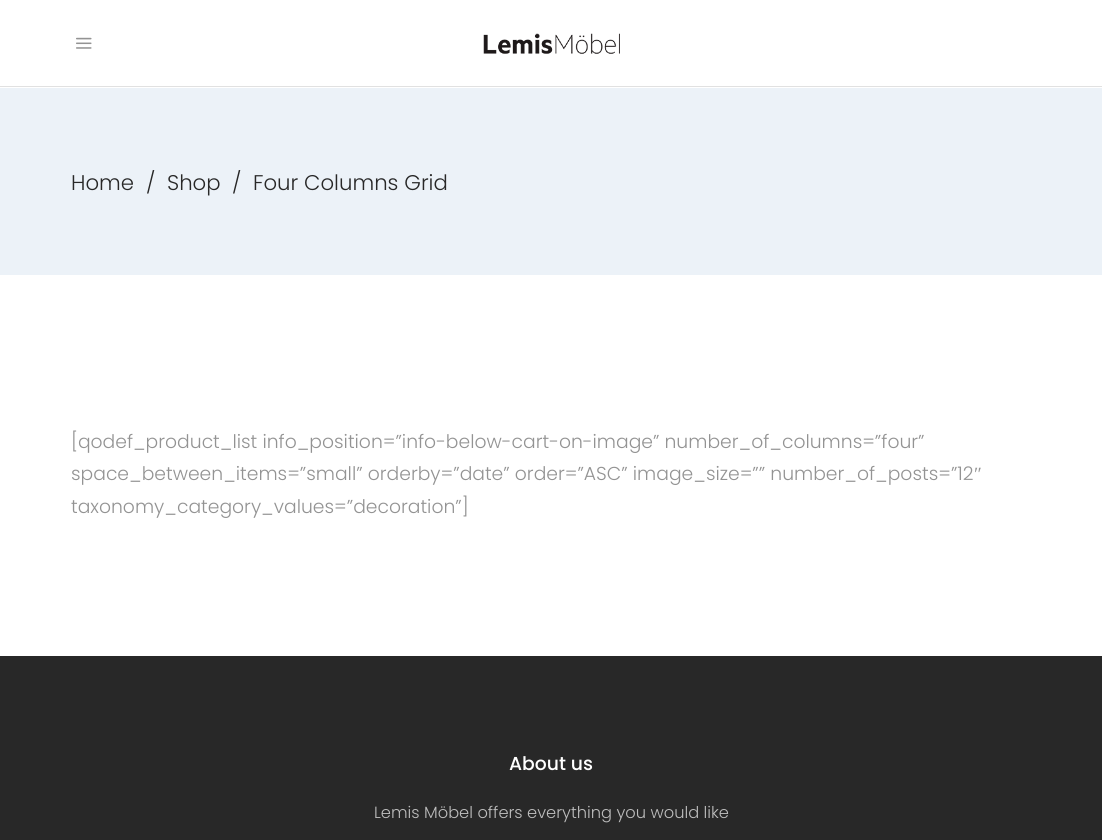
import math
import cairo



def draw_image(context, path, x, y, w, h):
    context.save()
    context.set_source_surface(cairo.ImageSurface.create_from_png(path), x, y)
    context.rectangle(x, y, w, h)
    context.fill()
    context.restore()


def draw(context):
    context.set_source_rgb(1, 1, 1)
    context.paint()
    context.set_source_rgb(225 / 255, 225 / 255, 225 / 255)
    context.rectangle(0, 86, 1102, 1)
    context.fill()
    draw_image(context, "images/1.png", 76, 37, 16, 12)
    draw_image(context, "images/2.png", 483, 33, 137, 21)
    context.set_source_rgb(236 / 255, 242 / 255, 248 / 255)
    context.rectangle(0, 88, 1102, 187)
    context.fill()
    context.set_source_rgb(40 / 255, 40 / 255, 40 / 255)
    context.rectangle(0, 656, 1102, 184)
    context.fill()
    context.select_font_face("Poppins Light")
    context.set_font_size(21.25)
    context.move_to(71, 190)
    context.show_text("Home")
    context.move_to(146, 190)
    context.show_text("/")
    context.move_to(167, 190)
    context.show_text("Shop")
    context.move_to(232, 190)
    context.show_text("/")
    context.move_to(253, 190)
    context.show_text("Four Columns Grid")
    context.set_font_size(18.75)
    context.set_source_rgb(147 / 255, 147 / 255, 147 / 255)
    context.move_to(71, 448)
    context.show_text("[qodef_product_list info_position=”info-below-cart-on-image” number_of_columns=”four”")
    context.move_to(71, 480)
    context.show_text("space_between_items=”small” orderby=”date” order=”ASC” image_size=”” number_of_posts=”12")
    context.select_font_face("Liberation Serif")
    context.move_to(974, 480)
    context.show_text("″")
    context.select_font_face("Poppins Light")
    context.move_to(71, 513)
    context.show_text("taxonomy_category_values=”decoration”]")
    context.select_font_face("Poppins Medium")
    context.set_source_rgb(1, 1, 1)
    context.move_to(509, 770)
    context.show_text("About us")
    context.select_font_face("Poppins Light")
    context.set_font_size(16.25)
    context.set_source_rgb(189 / 255, 189 / 255, 189 / 255)
    context.move_to(374, 818)
    context.show_text("Lemis Möbel offers everything you would like")


surface = cairo.ImageSurface(cairo.Format.RGB24, 1102, 840)
context = cairo.Context(surface)
options = cairo.FontOptions()
options.set_hint_metrics(cairo.HintMetrics.OFF)
options.set_hint_style(cairo.HintStyle.NONE)
context.set_font_options(options)
context.set_miter_limit(4)
draw(context)
surface.write_to_png("out.png")
